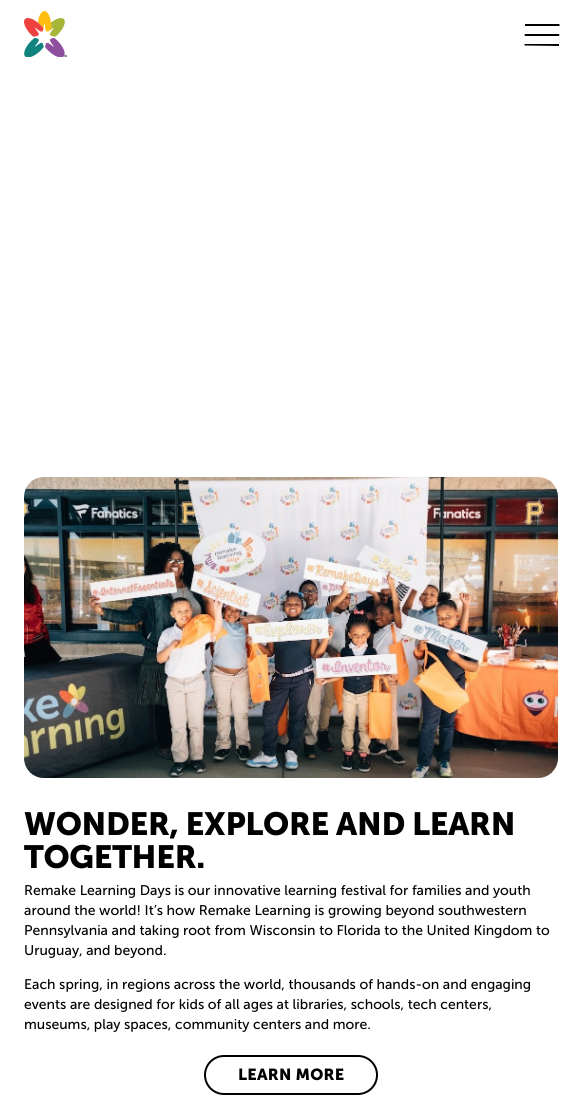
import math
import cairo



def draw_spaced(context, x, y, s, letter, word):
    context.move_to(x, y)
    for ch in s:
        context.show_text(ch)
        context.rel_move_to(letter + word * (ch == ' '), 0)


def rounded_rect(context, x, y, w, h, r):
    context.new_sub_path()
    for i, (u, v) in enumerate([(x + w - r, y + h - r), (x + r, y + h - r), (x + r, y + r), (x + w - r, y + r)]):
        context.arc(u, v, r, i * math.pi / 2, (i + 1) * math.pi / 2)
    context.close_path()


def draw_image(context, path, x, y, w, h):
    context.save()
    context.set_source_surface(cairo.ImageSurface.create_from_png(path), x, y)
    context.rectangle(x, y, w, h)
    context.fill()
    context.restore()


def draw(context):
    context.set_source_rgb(1, 1, 1)
    context.paint()
    draw_image(context, "images/1.png", 24, 11, 43, 46)
    context.save()
    context.new_path()
    context.move_to(525, 23)
    context.line_to(559.5, 23.5)
    context.line_to(559, 46)
    context.line_to(524.5, 45.5)
    context.close_path()
    context.clip()
    context.new_path()
    context.move_to(526, 25)
    context.line_to(558.5, 25)
    context.move_to(525.5, 35)
    context.line_to(558.5, 35)
    context.move_to(525.5, 45)
    context.line_to(558, 45)
    context.set_source_rgb(0, 0, 0)
    context.set_line_cap(cairo.LineCap.SQUARE)
    context.stroke()
    context.restore()
    draw_image(context, "images/2.png", 24, 477, 534, 301)
    rounded_rect(context, 205, 1056, 172, 38, 19)
    context.set_source_rgb(0, 0, 0)
    context.stroke()
    context.select_font_face("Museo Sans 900", cairo.FontSlant.NORMAL, cairo.FontWeight.BOLD)
    context.set_font_size(32)
    draw_spaced(context, 24, 835, "WONDER, EXPLORE AND LEARN", -0.3, 0)
    draw_spaced(context, 24, 868, "TOGETHER.", -0.3, 0)
    context.select_font_face("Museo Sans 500")
    context.set_font_size(14)
    context.move_to(24, 895)
    context.show_text("Remake Learning Days is our innovative learning festival for families and youth")
    context.move_to(24, 915)
    context.show_text("around the world! It’s how Remake Learning is growing beyond southwestern")
    context.move_to(24, 935)
    context.show_text("Pennsylvania and taking root from Wisconsin to Florida to the United Kingdom to")
    context.move_to(24, 955)
    context.show_text("Uruguay, and beyond.")
    context.move_to(24, 989)
    context.show_text("Each spring, in regions across the world, thousands of hands-on and engaging")
    context.move_to(24, 1009)
    context.show_text("events are designed for kids of all ages at libraries, schools, tech centers,")
    context.move_to(24, 1029)
    context.show_text("museums, play spaces, community centers and more.")
    context.select_font_face("Museo Sans 900", cairo.FontSlant.NORMAL, cairo.FontWeight.BOLD)
    context.set_font_size(16)
    draw_spaced(context, 238, 1080, "LEARN MORE", 0.25, 0)


surface = cairo.ImageSurface(cairo.Format.RGB24, 582, 1120)
context = cairo.Context(surface)
options = cairo.FontOptions()
options.set_hint_metrics(cairo.HintMetrics.OFF)
options.set_hint_style(cairo.HintStyle.NONE)
context.set_font_options(options)
context.set_miter_limit(4)
draw(context)
surface.write_to_png("out.png")
